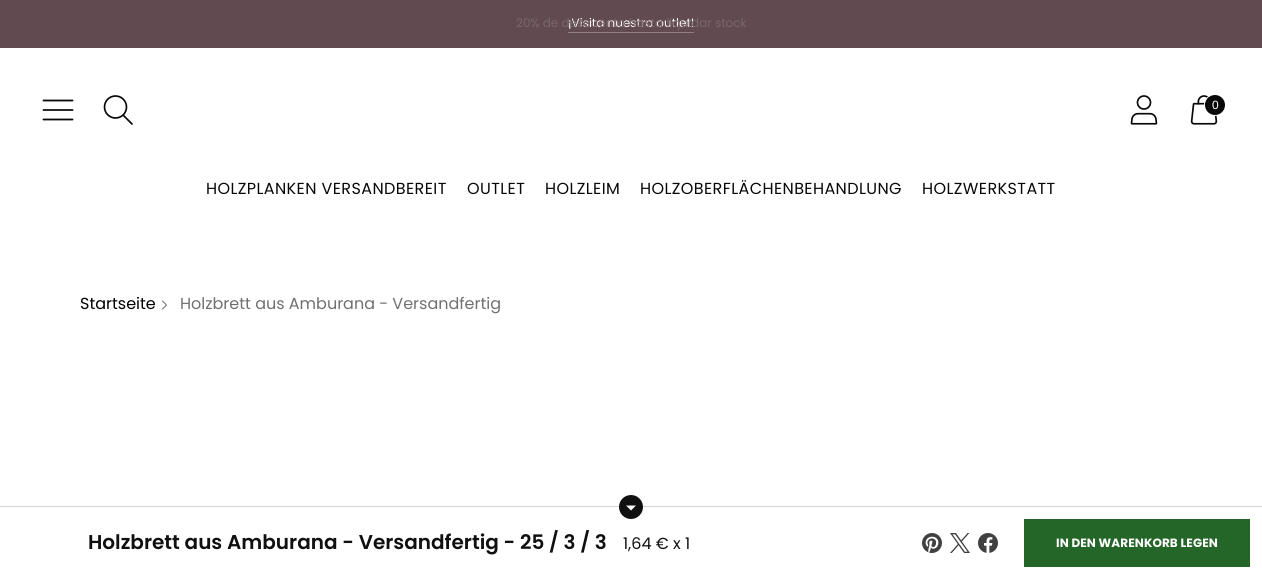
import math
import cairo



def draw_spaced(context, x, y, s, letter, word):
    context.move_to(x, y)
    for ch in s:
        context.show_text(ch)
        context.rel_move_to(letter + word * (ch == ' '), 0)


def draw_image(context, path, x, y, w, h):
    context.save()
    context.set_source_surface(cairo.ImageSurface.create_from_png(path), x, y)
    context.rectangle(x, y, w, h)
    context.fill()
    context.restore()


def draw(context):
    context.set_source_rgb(1, 1, 1)
    context.paint()
    context.set_source_rgb(97 / 255, 74 / 255, 80 / 255)
    context.rectangle(0, 0, 1262, 48)
    context.fill()
    context.set_source_rgb(144 / 255, 128 / 255, 133 / 255)
    context.rectangle(568, 32, 126, 1)
    context.fill()
    context.new_path()
    context.move_to(43.5, 110)
    context.line_to(72.5, 110)
    context.move_to(43.5, 100.5)
    context.line_to(72.5, 100.5)
    context.move_to(43.5, 119.5)
    context.line_to(72.5, 119.5)
    context.set_source_rgb(8 / 255, 8 / 255, 8 / 255)
    context.set_line_width(1.8)
    context.set_line_cap(cairo.LineCap.ROUND)
    context.set_line_join(cairo.LineJoin.ROUND)
    context.stroke()
    context.arc(115.5, 107, 11, 0, 2 * math.pi)
    context.set_line_width(1.7)
    context.set_line_cap(cairo.LineCap.BUTT)
    context.set_line_join(cairo.LineJoin.MITER)
    context.stroke()
    context.new_path()
    context.move_to(123.5, 115.5)
    context.line_to(132, 124)
    context.set_line_cap(cairo.LineCap.ROUND)
    context.set_line_join(cairo.LineJoin.ROUND)
    context.stroke()
    draw_image(context, "images/1.png", 1130, 95, 28, 30)
    draw_image(context, "images/2.png", 1190, 95, 28, 30)
    context.arc(1215, 105, 10.5, 0, 2 * math.pi)
    context.set_source_rgb(1, 1, 1)
    context.set_line_width(1)
    context.set_line_cap(cairo.LineCap.BUTT)
    context.set_line_join(cairo.LineJoin.MITER)
    context.stroke()
    context.set_source_rgb(8 / 255, 8 / 255, 8 / 255)
    context.arc(1215, 105, 10, 0, 2 * math.pi)
    context.fill()
    context.new_path()
    context.move_to(162.5, 309)
    context.line_to(166.5, 305)
    context.line_to(162.5, 301)
    context.set_source_rgb(112 / 255, 112 / 255, 112 / 255)
    context.set_line_cap(cairo.LineCap.ROUND)
    context.set_line_join(cairo.LineJoin.ROUND)
    context.stroke()
    context.set_source_rgb(212 / 255, 212 / 255, 212 / 255)
    context.rectangle(0, 506, 1262, 1)
    context.fill()
    context.set_source_rgb(16 / 255, 16 / 255, 16 / 255)
    context.arc(631, 507, 12, 0, 2 * math.pi)
    context.fill()
    context.set_source_rgb(1, 1, 1)
    context.new_path()
    context.move_to(626, 505.5)
    context.line_to(631, 510.5)
    context.line_to(636, 505.5)
    context.close_path()
    context.fill()
    draw_image(context, "images/3.png", 922, 533, 20, 20)
    draw_image(context, "images/4.png", 950, 533, 20, 20)
    draw_image(context, "images/5.png", 978, 533, 20, 20)
    context.set_source_rgb(36 / 255, 102 / 255, 39 / 255)
    context.rectangle(1024, 519, 226, 48)
    context.fill()
    context.select_font_face("Poppins")
    context.set_font_size(12)
    context.set_source_rgb(1, 1, 1)
    context.move_to(568, 27)
    context.show_text("¡Visita nuestro outlet!")
    context.set_source_rgb(122 / 255, 103 / 255, 108 / 255)
    context.move_to(516, 27)
    context.show_text("20% de descuento hasta liquidar stock")
    context.select_font_face("Liberation Sans")
    context.set_source_rgb(1, 1, 1)
    context.move_to(1212, 109)
    context.show_text("0")
    context.select_font_face("Poppins")
    context.set_font_size(16)
    context.set_source_rgb(8 / 255, 8 / 255, 8 / 255)
    draw_spaced(context, 206, 194, "HOLZPLANKEN VERSANDBEREIT", 0.4, 0)
    draw_spaced(context, 467, 194, "OUTLET", 0.4, 0)
    draw_spaced(context, 545, 194, "HOLZLEIM", 0.4, 0)
    draw_spaced(context, 640, 194, "HOLZOBERFLÄCHENBEHANDLUNG", 0.4, 0)
    draw_spaced(context, 922, 194, "HOLZWERKSTATT", 0.4, 0)
    context.set_source_rgb(0, 0, 0)
    context.move_to(80, 309)
    context.show_text("Startseite")
    context.set_source_rgb(112 / 255, 112 / 255, 112 / 255)
    context.move_to(180, 309)
    context.show_text("Holzbrett aus Amburana - Versandfertig")
    context.select_font_face("Poppins SemiBold")
    context.set_font_size(20)
    context.set_source_rgb(16 / 255, 16 / 255, 16 / 255)
    context.move_to(88, 549)
    context.show_text("Holzbrett aus Amburana - Versandfertig - 25 / 3 / 3")
    context.select_font_face("Poppins")
    context.set_font_size(16)
    context.move_to(623, 549)
    context.show_text("1,64 € x 1")
    context.select_font_face("Poppins", cairo.FontSlant.NORMAL, cairo.FontWeight.BOLD)
    context.set_font_size(12)
    context.set_source_rgb(1, 1, 1)
    draw_spaced(context, 1056, 547, "IN DEN WARENKORB LEGEN", 0.1, 0)


surface = cairo.ImageSurface(cairo.Format.RGB24, 1262, 579)
context = cairo.Context(surface)
options = cairo.FontOptions()
options.set_hint_metrics(cairo.HintMetrics.OFF)
options.set_hint_style(cairo.HintStyle.NONE)
context.set_font_options(options)
context.set_miter_limit(4)
draw(context)
surface.write_to_png("out.png")
